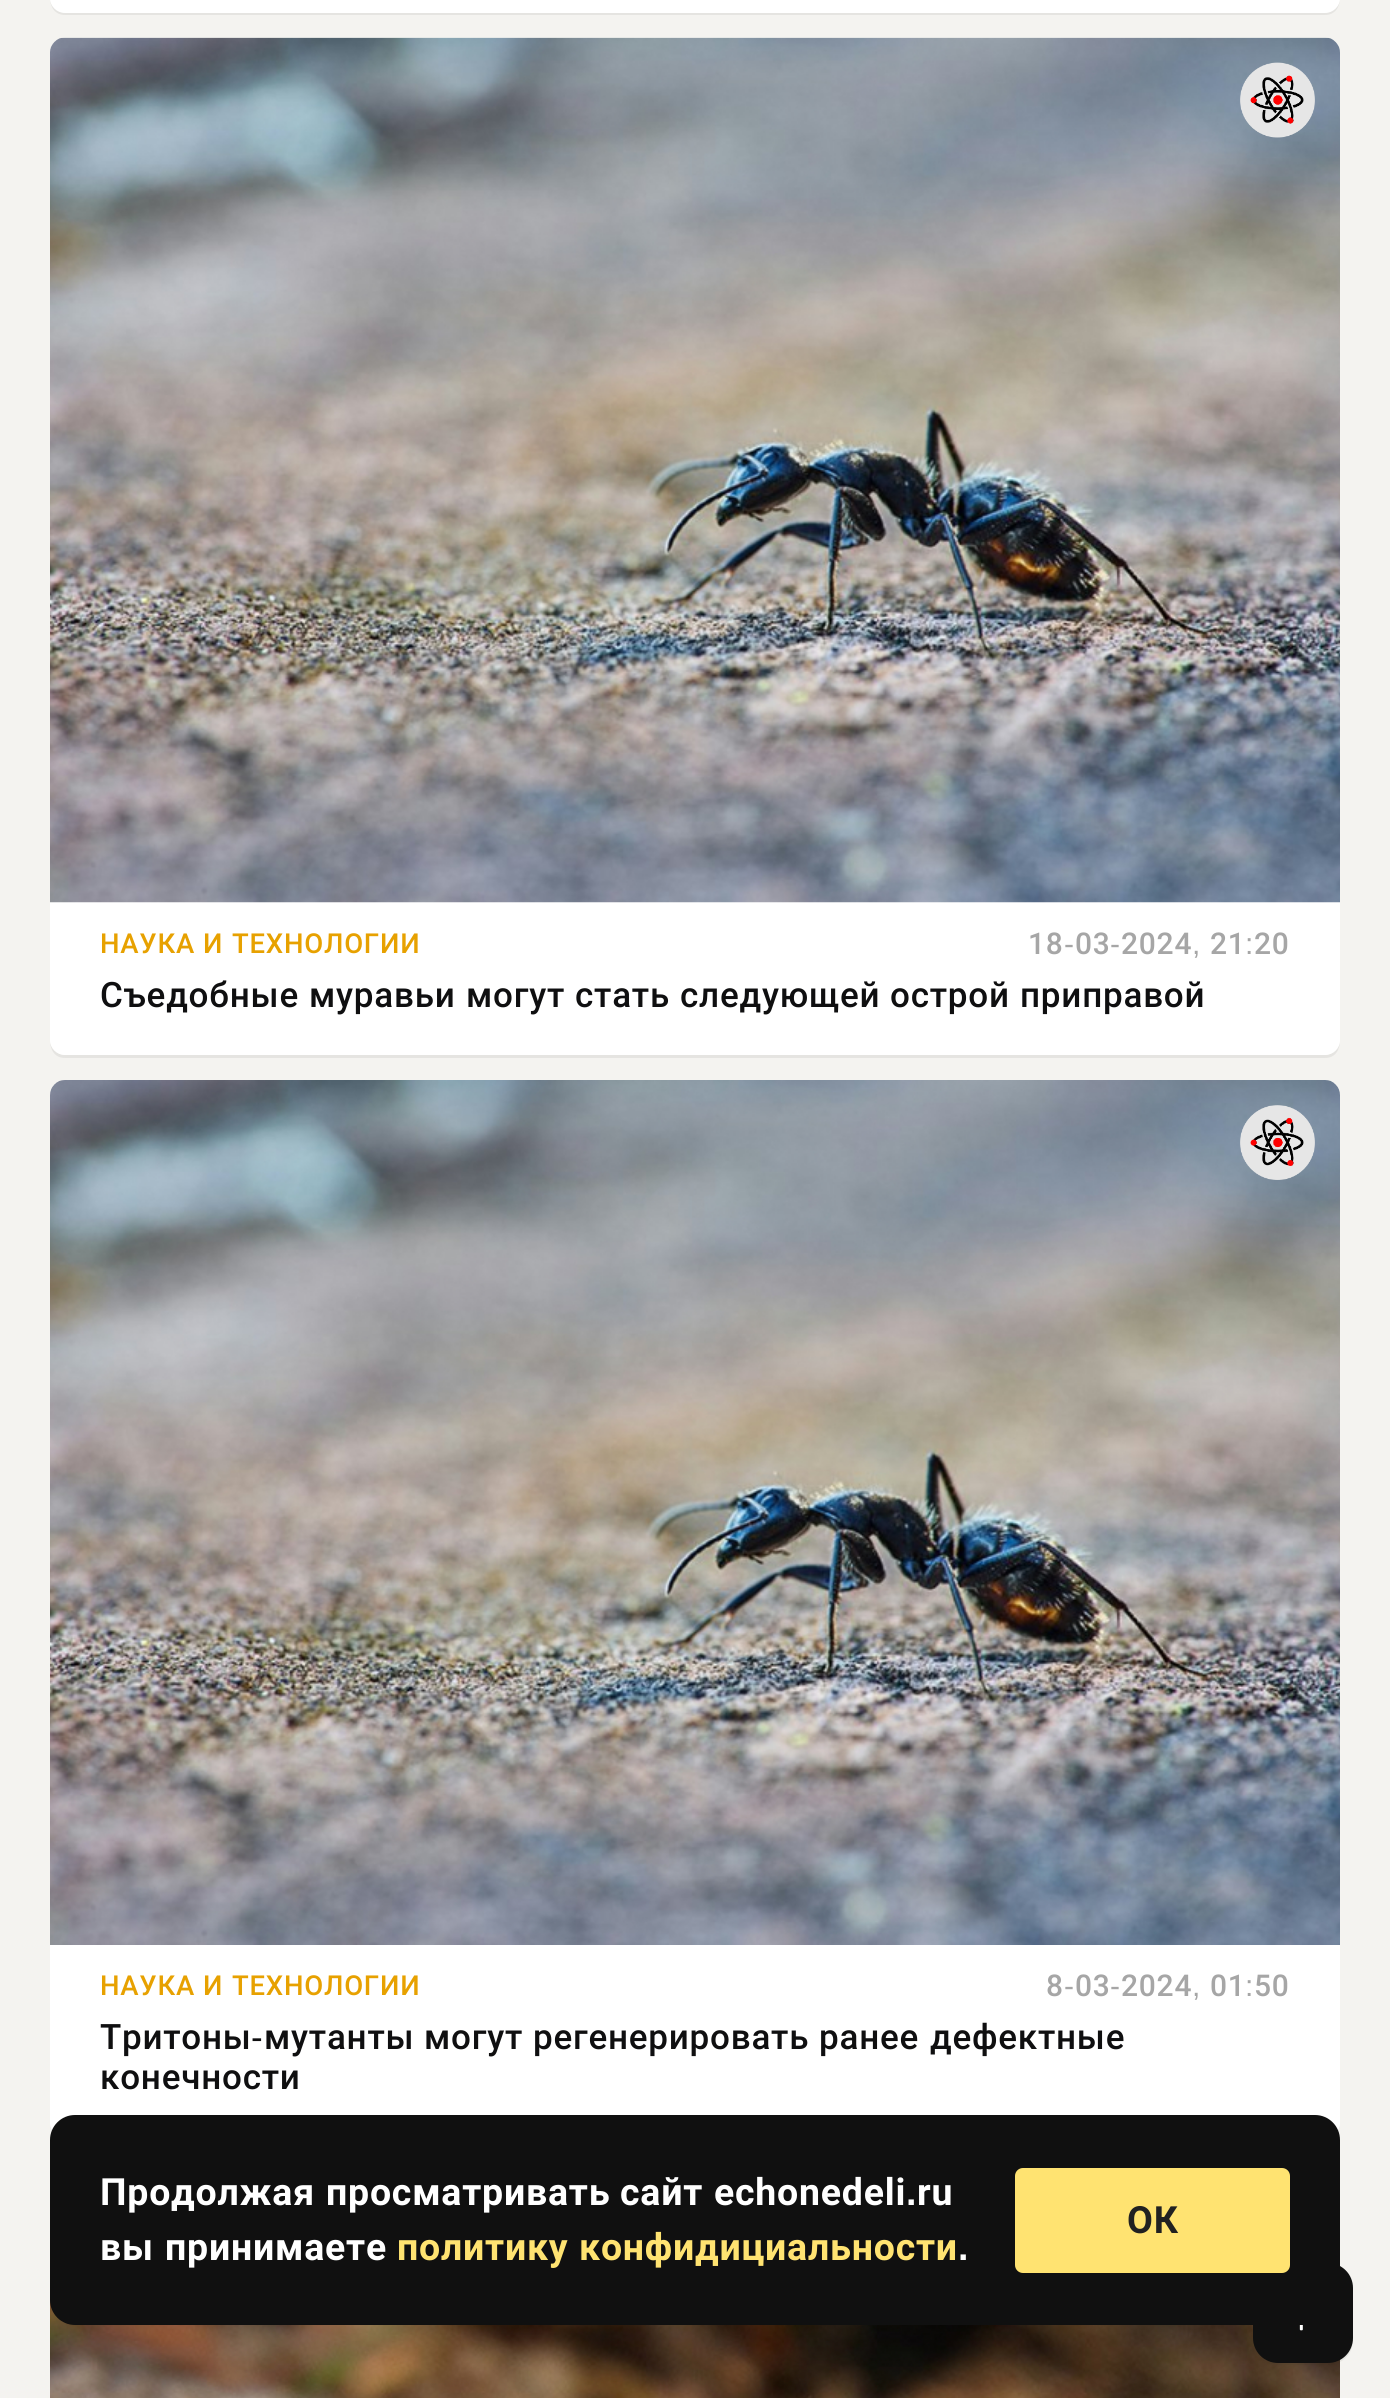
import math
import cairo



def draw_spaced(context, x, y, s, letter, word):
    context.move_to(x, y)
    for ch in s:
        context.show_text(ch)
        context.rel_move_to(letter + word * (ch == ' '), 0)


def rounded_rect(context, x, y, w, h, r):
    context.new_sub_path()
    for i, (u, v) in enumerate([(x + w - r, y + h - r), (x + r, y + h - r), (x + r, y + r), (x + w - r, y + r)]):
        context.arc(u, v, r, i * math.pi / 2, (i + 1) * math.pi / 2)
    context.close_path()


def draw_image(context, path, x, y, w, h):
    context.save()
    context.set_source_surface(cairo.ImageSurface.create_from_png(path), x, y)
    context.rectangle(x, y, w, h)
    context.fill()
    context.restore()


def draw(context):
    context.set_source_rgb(244 / 255, 243 / 255, 240 / 255)
    context.paint()
    context.set_source_rgb(229 / 255, 228 / 255, 225 / 255)
    context.new_path()
    context.move_to(50, -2)
    context.curve_to(50, 7, 55, 15, 65, 15)
    context.line_to(1325, 15)
    context.curve_to(1335, 15, 1340, 7, 1340, -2)
    context.curve_to(1340, 6, 1333, 12, 1325, 12)
    context.line_to(65, 12)
    context.curve_to(57, 12, 50, 6, 50, -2)
    context.close_path()
    context.fill()
    context.set_source_rgb(1, 1, 1)
    rounded_rect(context, 50, -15, 1290, 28, 15)
    context.fill()
    context.set_source_rgb(229 / 255, 228 / 255, 225 / 255)
    context.new_path()
    context.move_to(50, 1040)
    context.curve_to(50, 1049, 54, 1058, 65, 1058)
    context.line_to(1325, 1058)
    context.curve_to(1336, 1058, 1340, 1049, 1340, 1040)
    context.curve_to(1340, 1048, 1333, 1055, 1325, 1055)
    context.line_to(65, 1055)
    context.curve_to(57, 1055, 50, 1048, 50, 1040)
    context.close_path()
    context.fill()
    context.set_source_rgb(1, 1, 1)
    rounded_rect(context, 50, 38, 1290, 1017, 15)
    context.fill()
    draw_image(context, "images/1.png", 50, 37, 1290, 866)
    draw_image(context, "images/2.png", 1240, 62, 75, 76)
    context.set_source_rgb(229 / 255, 228 / 255, 225 / 255)
    context.new_path()
    context.move_to(50, 2122)
    context.curve_to(50, 2132, 55, 2140, 65, 2140)
    context.line_to(1325, 2140)
    context.curve_to(1335, 2140, 1340, 2132, 1340, 2122)
    context.curve_to(1340, 2131, 1333, 2138, 1325, 2138)
    context.line_to(65, 2138)
    context.curve_to(57, 2138, 50, 2131, 50, 2122)
    context.close_path()
    context.fill()
    context.set_source_rgb(1, 1, 1)
    rounded_rect(context, 50, 1080, 1290, 1058, 15)
    context.fill()
    draw_image(context, "images/3.png", 50, 1080, 1290, 865)
    draw_image(context, "images/4.png", 1240, 1105, 75, 75)
    draw_image(context, "images/5.png", 50, 2300, 1290, 98)
    context.set_source_rgba(56 / 255, 50 / 255, 48 / 255, 0.08)
    context.new_path()
    context.move_to(1253, 2344)
    context.curve_to(1255, 2356, 1265, 2365, 1278, 2365)
    context.line_to(1328, 2365)
    context.curve_to(1342, 2365, 1353, 2354, 1353, 2340)
    context.line_to(1353, 2290)
    context.line_to(1352, 2284)
    context.line_to(1352, 2338)
    context.curve_to(1352, 2351, 1341, 2362, 1328, 2362)
    context.line_to(1278, 2362)
    context.curve_to(1266, 2362, 1256, 2354, 1253, 2344)
    context.close_path()
    context.fill()
    context.set_source_rgb(16 / 255, 16 / 255, 16 / 255)
    rounded_rect(context, 1253, 2263, 100, 100, 25)
    context.fill()
    rounded_rect(context, 50, 2115, 1290, 210, 25)
    context.fill()
    context.set_source_rgb(1, 227 / 255, 113 / 255)
    rounded_rect(context, 1015, 2168, 275, 105, 8)
    context.fill()
    draw_image(context, "images/6.png", 1299, 2325, 4, 6)
    context.select_font_face("Roboto Medium")
    context.set_font_size(27.5)
    context.set_source_rgb(231 / 255, 161 / 255, 0)
    draw_spaced(context, 100, 953, "НАУКА", 0.75, 0)
    draw_spaced(context, 203, 953, "И", 0.75, 0)
    draw_spaced(context, 232, 953, "ТЕХНОЛОГИИ", 0.75, 0)
    context.set_font_size(30)
    context.set_source_rgb(166 / 255, 166 / 255, 166 / 255)
    draw_spaced(context, 1028, 954, "18", 0.75, 0)
    context.select_font_face("Liberation Sans")
    draw_spaced(context, 1064, 954, "-", 0.75, 0)
    context.select_font_face("Roboto Medium")
    draw_spaced(context, 1075, 954, "03", 0.75, 0)
    context.select_font_face("Liberation Sans")
    draw_spaced(context, 1110, 954, "-", 0.75, 0)
    context.select_font_face("Roboto Medium")
    draw_spaced(context, 1121, 954, "2024", 0.75, 0)
    draw_spaced(context, 1210, 954, "21", 0.75, 0)
    context.select_font_face("Liberation Sans")
    draw_spaced(context, 1245, 954, ":", 0.75, 0)
    context.select_font_face("Roboto Medium")
    draw_spaced(context, 1254, 954, "20", 0.75, 0)
    context.select_font_face("Liberation Sans")
    draw_spaced(context, 1192, 954, ",", 0.75, 0)
    context.select_font_face("Roboto Medium")
    context.set_font_size(35)
    context.set_source_rgb(15 / 255, 15 / 255, 16 / 255)
    draw_spaced(context, 100, 1007, "Съедобные", 0.75, 0)
    draw_spaced(context, 309, 1007, "муравьи", 0.75, 0)
    draw_spaced(context, 466, 1007, "могут", 0.75, 0)
    draw_spaced(context, 575, 1007, "стать", 0.75, 0)
    draw_spaced(context, 680, 1007, "следующей", 0.75, 0)
    draw_spaced(context, 890, 1007, "острой", 0.75, 0)
    draw_spaced(context, 1020, 1007, "приправой", 0.75, 0)
    context.set_font_size(27.5)
    context.set_source_rgb(231 / 255, 161 / 255, 0)
    draw_spaced(context, 100, 1995, "НАУКА", 0.75, 0)
    draw_spaced(context, 203, 1995, "И", 0.75, 0)
    draw_spaced(context, 232, 1995, "ТЕХНОЛОГИИ", 0.75, 0)
    context.set_font_size(30)
    context.set_source_rgb(166 / 255, 166 / 255, 166 / 255)
    draw_spaced(context, 1046, 1996, "8", 0.75, 0)
    context.select_font_face("Liberation Sans")
    draw_spaced(context, 1064, 1996, "-", 0.75, 0)
    context.select_font_face("Roboto Medium")
    draw_spaced(context, 1075, 1996, "03", 0.75, 0)
    context.select_font_face("Liberation Sans")
    draw_spaced(context, 1110, 1996, "-", 0.75, 0)
    context.select_font_face("Roboto Medium")
    draw_spaced(context, 1121, 1996, "2024", 0.75, 0)
    draw_spaced(context, 1210, 1996, "01", 0.75, 0)
    context.select_font_face("Liberation Sans")
    draw_spaced(context, 1245, 1996, ":", 0.75, 0)
    context.select_font_face("Roboto Medium")
    draw_spaced(context, 1254, 1996, "50", 0.75, 0)
    context.select_font_face("Liberation Sans")
    draw_spaced(context, 1192, 1996, ",", 0.75, 0)
    context.select_font_face("Roboto Medium")
    context.set_font_size(35)
    context.set_source_rgb(15 / 255, 15 / 255, 16 / 255)
    draw_spaced(context, 100, 2049, "Тритоны", 0.75, 0)
    context.select_font_face("Liberation Sans")
    draw_spaced(context, 251, 2049, "-", 0.75, 0)
    context.select_font_face("Roboto Medium")
    draw_spaced(context, 264, 2049, "мутанты", 0.75, 0)
    draw_spaced(context, 424, 2049, "могут", 0.75, 0)
    draw_spaced(context, 533, 2049, "регенерировать", 0.75, 0)
    draw_spaced(context, 819, 2049, "ранее", 0.75, 0)
    draw_spaced(context, 930, 2049, "дефектные", 0.75, 0)
    draw_spaced(context, 100, 2089, "конечности", 0.75, 0)
    context.select_font_face("Roboto", cairo.FontSlant.NORMAL, cairo.FontWeight.BOLD)
    context.set_font_size(37.5)
    context.set_source_rgb(1, 1, 1)
    draw_spaced(context, 100, 2205, "Продолжая", 0.75, 0)
    draw_spaced(context, 326, 2205, "просматривать", 0.75, 0)
    draw_spaced(context, 620, 2205, "сайт", 0.75, 0)
    draw_spaced(context, 714, 2205, "echonedeli", 0.75, 0)
    context.select_font_face("Liberation Sans", cairo.FontSlant.NORMAL, cairo.FontWeight.BOLD)
    draw_spaced(context, 906, 2205, ".", 0.75, 0)
    context.select_font_face("Roboto", cairo.FontSlant.NORMAL, cairo.FontWeight.BOLD)
    draw_spaced(context, 917, 2205, "ru", 0.75, 0)
    draw_spaced(context, 100, 2260, "вы", 0.75, 0)
    draw_spaced(context, 165, 2260, "принимаете", 0.75, 0)
    context.set_source_rgb(1, 227 / 255, 113 / 255)
    draw_spaced(context, 397, 2260, "политику", 0.75, 0)
    draw_spaced(context, 579, 2260, "конфидициальности", 0.75, 0)
    context.select_font_face("Liberation Sans", cairo.FontSlant.NORMAL, cairo.FontWeight.BOLD)
    context.set_source_rgb(1, 1, 1)
    draw_spaced(context, 958, 2260, ".", 0.75, 0)
    context.select_font_face("Roboto", cairo.FontSlant.NORMAL, cairo.FontWeight.BOLD)
    context.set_source_rgb(33 / 255, 33 / 255, 33 / 255)
    draw_spaced(context, 1127, 2233, "ОК", 0.75, 0)


surface = cairo.ImageSurface(cairo.Format.RGB24, 1390, 2398)
context = cairo.Context(surface)
options = cairo.FontOptions()
options.set_hint_metrics(cairo.HintMetrics.OFF)
options.set_hint_style(cairo.HintStyle.NONE)
context.set_font_options(options)
context.set_miter_limit(4)
draw(context)
surface.write_to_png("out.png")
